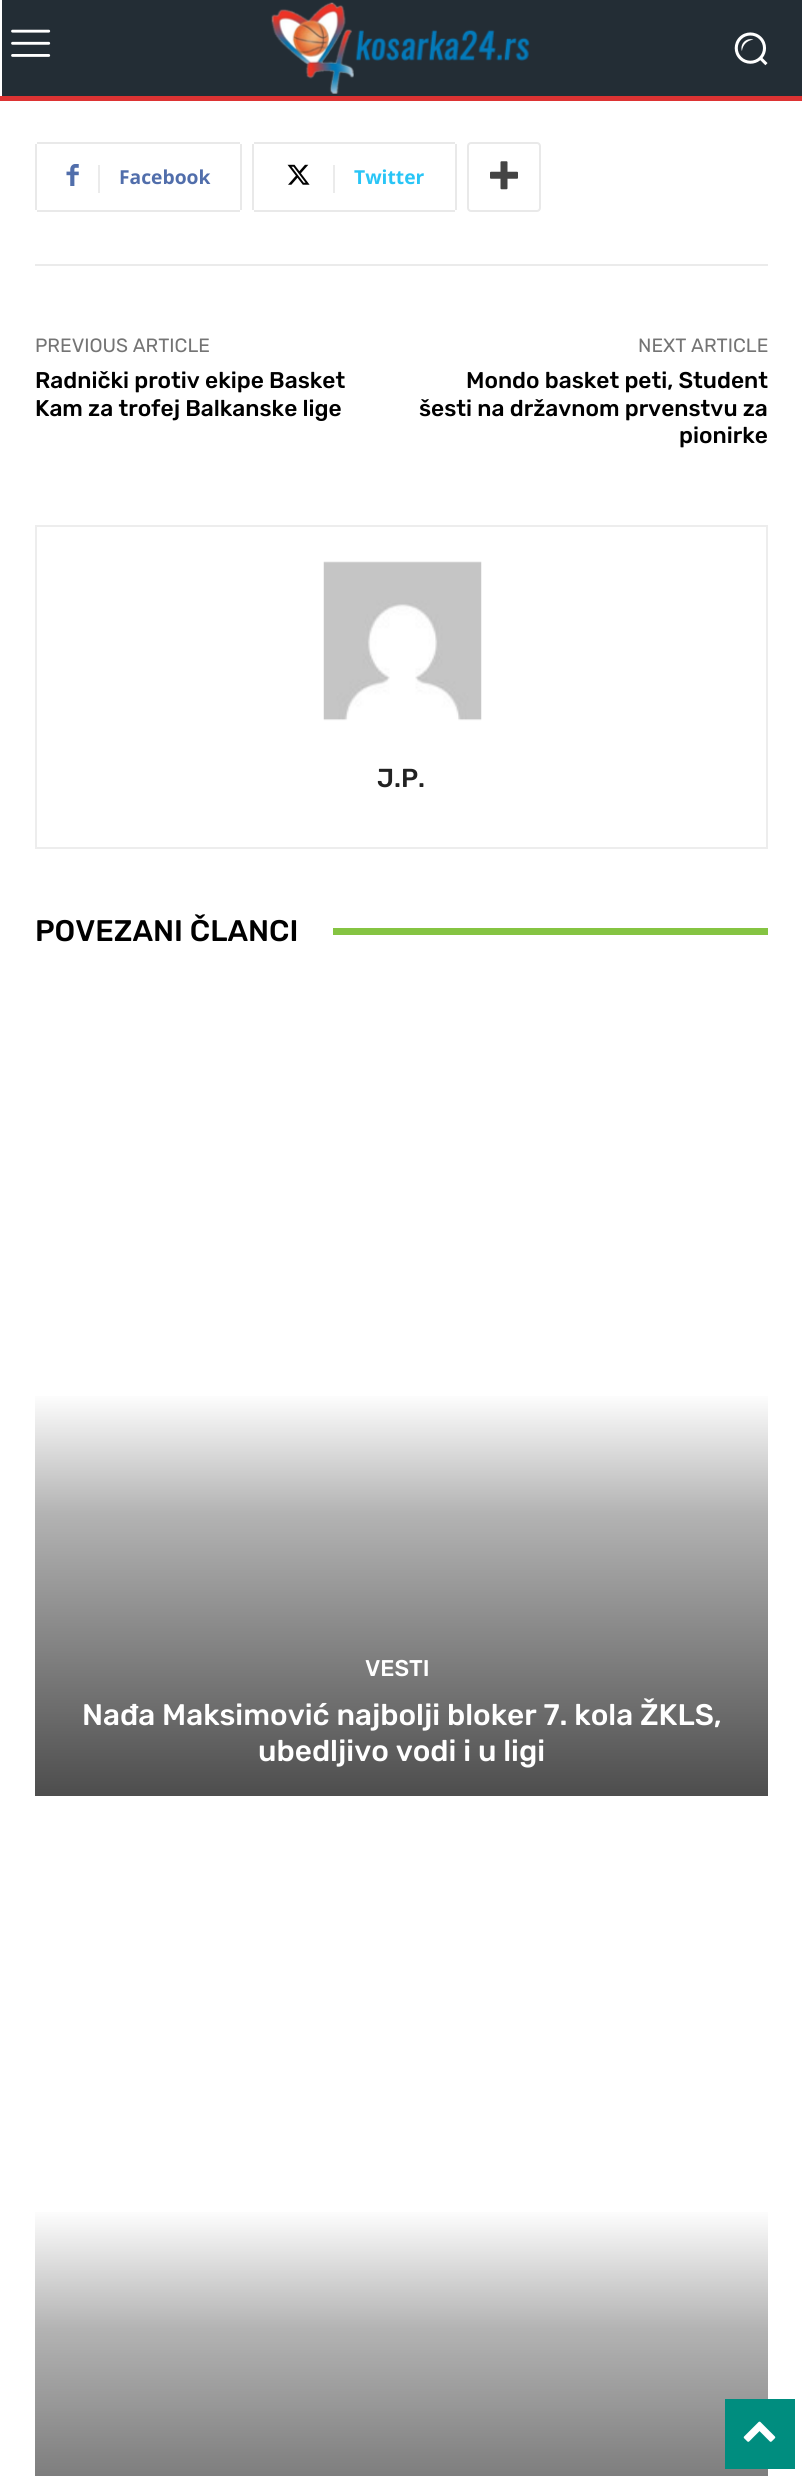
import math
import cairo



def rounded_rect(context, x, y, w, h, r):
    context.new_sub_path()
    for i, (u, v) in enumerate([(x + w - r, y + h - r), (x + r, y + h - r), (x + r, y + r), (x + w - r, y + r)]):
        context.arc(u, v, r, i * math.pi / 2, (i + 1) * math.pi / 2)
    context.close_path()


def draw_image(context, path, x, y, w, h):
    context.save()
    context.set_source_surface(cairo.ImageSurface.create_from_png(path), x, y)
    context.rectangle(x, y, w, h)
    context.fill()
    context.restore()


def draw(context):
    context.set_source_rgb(1, 1, 1)
    context.paint()
    context.set_source_rgb(35 / 255, 45 / 255, 53 / 255)
    context.rectangle(2, 0, 800, 96)
    context.fill()
    draw_image(context, "images/1.png", 11, 29, 40, 28)
    draw_image(context, "images/2.png", 271, 2, 259, 92)
    draw_image(context, "images/3.png", 734, 32, 34, 34)
    context.set_source_rgb(221 / 255, 51 / 255, 51 / 255)
    context.rectangle(0, 96, 802, 5)
    context.fill()
    context.set_source_rgb(233 / 255, 233 / 255, 233 / 255)
    context.rectangle(35, 144, 2, 66)
    context.fill()
    draw_image(context, "images/4.png", 66, 164, 13, 22)
    context.rectangle(37, 142, 203, 2)
    context.fill()
    context.rectangle(240, 144, 2, 66)
    context.fill()
    context.rectangle(37, 210, 203, 2)
    context.fill()
    context.set_source_rgb(235 / 255, 235 / 255, 235 / 255)
    context.rectangle(98, 165, 2, 28)
    context.fill()
    context.set_source_rgb(233 / 255, 233 / 255, 233 / 255)
    context.rectangle(252, 144, 2, 66)
    context.fill()
    draw_image(context, "images/5.png", 287, 164, 23, 21)
    context.rectangle(254, 142, 201, 2)
    context.fill()
    context.rectangle(455, 144, 2, 66)
    context.fill()
    context.rectangle(254, 210, 201, 2)
    context.fill()
    context.set_source_rgb(235 / 255, 235 / 255, 235 / 255)
    context.rectangle(333, 165, 2, 28)
    context.fill()
    rounded_rect(context, 468, 143, 72, 68, 3)
    context.set_source_rgb(233 / 255, 233 / 255, 233 / 255)
    context.stroke()
    draw_image(context, "images/6.png", 490, 161, 28, 29)
    context.set_source_rgb(235 / 255, 235 / 255, 235 / 255)
    context.rectangle(35, 264, 733, 2)
    context.fill()
    context.rectangle(36, 526, 731, 322)
    context.set_source_rgb(237 / 255, 237 / 255, 237 / 255)
    context.stroke()
    draw_image(context, "images/7.png", 323, 561, 159, 160)
    context.set_source_rgb(133 / 255, 196 / 255, 66 / 255)
    context.rectangle(333, 928, 435, 7)
    context.fill()
    gradient = cairo.LinearGradient(402, 1796, 402, 989)
    gradient.add_color_stop_rgba(0, 77 / 255, 77 / 255, 77 / 255, 1)
    gradient.add_color_stop_rgba(0.35, 179 / 255, 179 / 255, 179 / 255, 1)
    gradient.add_color_stop_rgba(0.5, 1, 1, 1, 1)
    gradient.add_color_stop_rgba(1, 1, 1, 1, 1)
    context.set_source(gradient)
    context.rectangle(35, 1396, 733, 400)
    context.fill()
    gradient = cairo.LinearGradient(402, 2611, 402, 1806)
    gradient.add_color_stop_rgba(0, 77 / 255, 77 / 255, 77 / 255, 1)
    gradient.add_color_stop_rgba(0.35, 179 / 255, 179 / 255, 179 / 255, 1)
    gradient.add_color_stop_rgba(0.5, 1, 1, 1, 1)
    gradient.add_color_stop_rgba(1, 1, 1, 1, 1)
    context.set_source(gradient)
    context.rectangle(35, 2212, 733, 264)
    context.fill()
    context.set_source_rgb(0, 141 / 255, 127 / 255)
    context.rectangle(725, 2399, 70, 70)
    context.fill()
    draw_image(context, "images/8.png", 743, 2421, 33, 21)
    context.select_font_face("Open Sans", cairo.FontSlant.NORMAL, cairo.FontWeight.BOLD)
    context.set_font_size(19.25)
    context.set_source_rgb(81 / 255, 110 / 255, 171 / 255)
    context.move_to(119, 184)
    context.show_text("Facebook")
    context.set_source_rgb(41 / 255, 197 / 255, 246 / 255)
    context.move_to(354, 184)
    context.show_text("Twitter")
    context.select_font_face("Rubik")
    context.set_source_rgb(116 / 255, 116 / 255, 116 / 255)
    context.move_to(35, 352)
    context.show_text("PREVIOUS ARTICLE")
    context.select_font_face("Rubik Medium")
    context.set_font_size(22.75)
    context.set_source_rgb(0, 0, 0)
    context.move_to(35, 388)
    context.show_text("Radnički protiv ekipe Basket")
    context.move_to(35, 416)
    context.show_text("Kam za trofej Balkanske lige")
    context.select_font_face("Rubik")
    context.set_font_size(19.25)
    context.set_source_rgb(116 / 255, 116 / 255, 116 / 255)
    context.move_to(638, 352)
    context.show_text("NEXT ARTICLE")
    context.select_font_face("Rubik Medium")
    context.set_font_size(22.75)
    context.set_source_rgb(0, 0, 0)
    context.move_to(466, 388)
    context.show_text("Mondo basket peti, Student")
    context.move_to(419, 416)
    context.show_text("šesti na državnom prvenstvu za")
    context.move_to(679, 443)
    context.show_text("pionirke")
    context.set_font_size(26)
    context.set_source_rgb(34 / 255, 34 / 255, 34 / 255)
    context.move_to(377, 787)
    context.show_text("J.P.")
    context.set_font_size(29.75)
    context.set_source_rgb(0, 0, 0)
    context.move_to(35, 941)
    context.show_text("POVEZANI ČLANCI")
    context.set_font_size(22.75)
    context.set_source_rgb(1, 1, 1)
    context.move_to(365, 1676)
    context.show_text("VESTI")
    context.set_font_size(29.75)
    context.move_to(82, 1725)
    context.show_text("Nađa Maksimović najbolji bloker 7. kola ŽKLS,")
    context.move_to(258, 1761)
    context.show_text("ubedljivo vodi i u ligi")


surface = cairo.ImageSurface(cairo.Format.RGB24, 802, 2476)
context = cairo.Context(surface)
options = cairo.FontOptions()
options.set_hint_metrics(cairo.HintMetrics.OFF)
options.set_hint_style(cairo.HintStyle.NONE)
context.set_font_options(options)
context.set_miter_limit(4)
draw(context)
surface.write_to_png("out.png")
